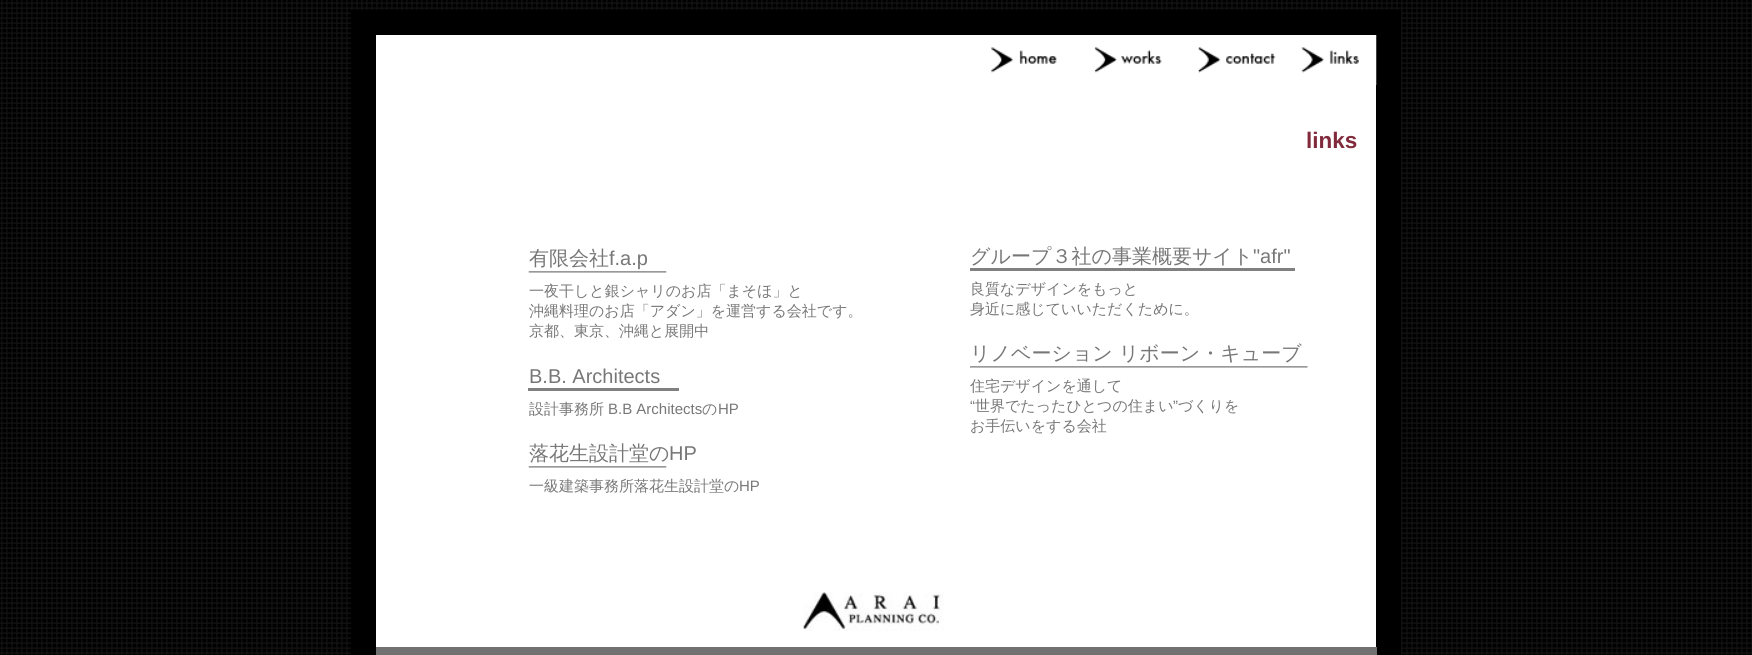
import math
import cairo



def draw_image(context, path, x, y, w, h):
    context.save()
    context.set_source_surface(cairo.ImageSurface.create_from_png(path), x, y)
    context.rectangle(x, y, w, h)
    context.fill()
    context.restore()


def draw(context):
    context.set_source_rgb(1, 1, 1)
    context.paint()
    draw_image(context, "images/1.png", 0, 0, 1752, 655)
    context.set_source_rgb(0, 0, 0)
    context.rectangle(351, 10, 1050, 645)
    context.fill()
    context.set_source_rgb(1, 1, 1)
    context.rectangle(376, 35, 1000, 612)
    context.fill()
    draw_image(context, "images/2.png", 991, 47, 66, 26)
    draw_image(context, "images/3.png", 1094, 47, 68, 26)
    draw_image(context, "images/4.png", 1198, 47, 78, 26)
    draw_image(context, "images/5.png", 1301, 35, 76, 50)
    draw_image(context, "images/6.png", 528, 271, 139, 2)
    context.set_source_rgb(128 / 255, 128 / 255, 128 / 255)
    context.rectangle(528, 388, 151, 3)
    context.fill()
    draw_image(context, "images/6.png", 528, 466, 139, 2)
    context.rectangle(970, 268, 325, 3)
    context.fill()
    draw_image(context, "images/7.png", 970, 366, 338, 2)
    draw_image(context, "images/8.png", 803, 592, 141, 39)
    context.set_source_rgb(114 / 255, 113 / 255, 114 / 255)
    context.rectangle(376, 647, 1001, 8)
    context.fill()
    context.select_font_face("Liberation Sans", cairo.FontSlant.NORMAL, cairo.FontWeight.BOLD)
    context.set_font_size(22.5)
    context.set_source_rgb(128 / 255, 42 / 255, 59 / 255)
    context.move_to(1306, 148)
    context.show_text("links")
    context.select_font_face("WenQuanYi Zen Hei Medium")
    context.set_font_size(20)
    context.set_source_rgb(119 / 255, 119 / 255, 119 / 255)
    context.move_to(529, 265)
    context.show_text("有限会社")
    context.select_font_face("Liberation Sans")
    context.move_to(609, 265)
    context.show_text("f.a.p")
    context.select_font_face("WenQuanYi Zen Hei Medium")
    context.set_font_size(15)
    context.move_to(529, 296)
    context.show_text("一夜干しと銀シャリのお店「まそほ」と")
    context.move_to(529, 316)
    context.show_text("沖縄料理のお店「アダン」を運営する会社です。")
    context.move_to(529, 336)
    context.show_text("京都、東京、沖縄と展開中")
    context.select_font_face("Liberation Sans")
    context.set_font_size(20)
    context.move_to(529, 383)
    context.show_text("B.B. Architects")
    context.select_font_face("WenQuanYi Zen Hei Medium")
    context.set_font_size(15)
    context.move_to(529, 414)
    context.show_text("設計事務所")
    context.select_font_face("Liberation Sans")
    context.move_to(608, 414)
    context.show_text("B.B Architects")
    context.select_font_face("WenQuanYi Zen Hei Medium")
    context.move_to(702, 414)
    context.show_text("の")
    context.select_font_face("Liberation Sans")
    context.move_to(718, 414)
    context.show_text("HP")
    context.select_font_face("WenQuanYi Zen Hei Medium")
    context.set_font_size(20)
    context.move_to(529, 460)
    context.show_text("落花生設計堂の")
    context.select_font_face("Liberation Sans")
    context.move_to(669, 460)
    context.show_text("HP")
    context.select_font_face("WenQuanYi Zen Hei Medium")
    context.set_font_size(15)
    context.move_to(529, 491)
    context.show_text("一級建築事務所落花生設計堂の")
    context.select_font_face("Liberation Sans")
    context.move_to(739, 491)
    context.show_text("HP")
    context.select_font_face("WenQuanYi Zen Hei Medium")
    context.set_font_size(20)
    context.move_to(970, 263)
    context.show_text("グループ３社の事業概要サイト")
    context.select_font_face("Liberation Sans")
    context.move_to(1253, 263)
    context.show_text("\"afr\"")
    context.select_font_face("WenQuanYi Zen Hei Medium")
    context.set_font_size(15)
    context.move_to(970, 294)
    context.show_text("良質なデザインをもっと")
    context.move_to(970, 314)
    context.show_text("身近に感じていいただくために。")
    context.set_font_size(20)
    context.move_to(970, 360)
    context.show_text("リノベーション リボーン・キューブ")
    context.set_font_size(15)
    context.move_to(970, 391)
    context.show_text("住宅デザインを通して")
    context.select_font_face("Liberation Sans")
    context.move_to(970, 411)
    context.show_text("“")
    context.select_font_face("WenQuanYi Zen Hei Medium")
    context.move_to(975, 411)
    context.show_text("世界でたったひとつの住まい")
    context.select_font_face("Liberation Sans")
    context.move_to(1173, 411)
    context.show_text("”")
    context.select_font_face("WenQuanYi Zen Hei Medium")
    context.move_to(1178, 411)
    context.show_text("づくりを")
    context.move_to(970, 431)
    context.show_text("お手伝いをする会社")


surface = cairo.ImageSurface(cairo.Format.RGB24, 1752, 655)
context = cairo.Context(surface)
options = cairo.FontOptions()
options.set_hint_metrics(cairo.HintMetrics.OFF)
options.set_hint_style(cairo.HintStyle.NONE)
context.set_font_options(options)
context.set_miter_limit(4)
draw(context)
surface.write_to_png("out.png")
